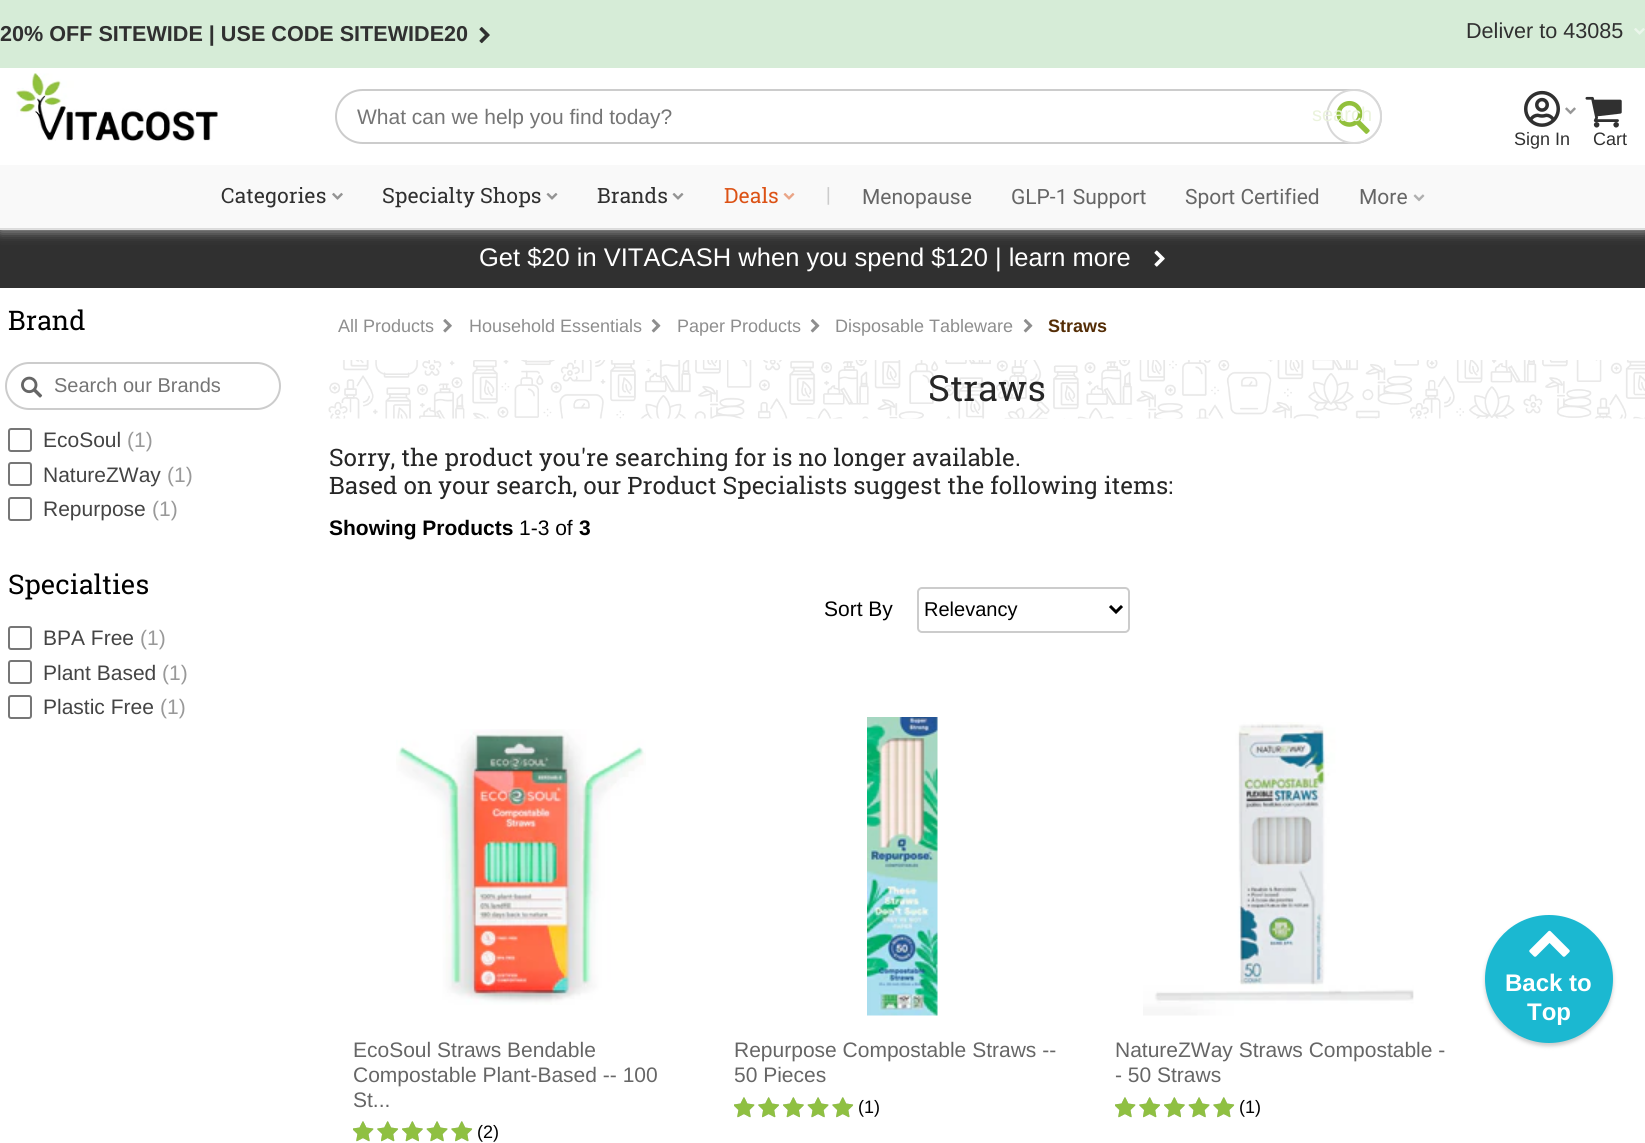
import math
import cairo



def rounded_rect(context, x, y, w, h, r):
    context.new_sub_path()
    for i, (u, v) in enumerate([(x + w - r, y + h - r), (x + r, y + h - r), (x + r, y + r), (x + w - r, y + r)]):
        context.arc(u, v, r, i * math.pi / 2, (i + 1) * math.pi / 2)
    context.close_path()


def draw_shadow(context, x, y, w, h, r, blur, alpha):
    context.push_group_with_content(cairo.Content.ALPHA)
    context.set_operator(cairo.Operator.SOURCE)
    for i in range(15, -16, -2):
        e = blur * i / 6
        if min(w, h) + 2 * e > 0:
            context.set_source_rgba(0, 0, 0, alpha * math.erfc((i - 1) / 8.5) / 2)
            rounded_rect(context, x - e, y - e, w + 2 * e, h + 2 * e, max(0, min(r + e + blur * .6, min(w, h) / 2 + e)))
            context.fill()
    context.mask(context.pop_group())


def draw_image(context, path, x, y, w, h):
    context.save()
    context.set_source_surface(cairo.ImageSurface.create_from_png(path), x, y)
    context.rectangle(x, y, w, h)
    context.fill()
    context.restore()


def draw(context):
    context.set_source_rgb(1, 1, 1)
    context.paint()
    context.set_source_rgb(48 / 255, 48 / 255, 48 / 255)
    context.rectangle(0, 230, 1645, 58)
    context.fill()
    context.set_source_rgb(200 / 255, 200 / 255, 200 / 255)
    draw_shadow(context, 0, 0, 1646, 230, 0, 6, 1)
    context.set_source_rgb(1, 1, 1)
    context.rectangle(0, 68, 1645, 97)
    context.fill()
    context.set_source_rgb(241 / 255, 241 / 255, 241 / 255)
    context.rectangle(0, 228, 1645, 2)
    context.fill()
    context.set_source_rgb(214 / 255, 236 / 255, 215 / 255)
    context.rectangle(0, 0, 1645, 68)
    context.fill()
    draw_image(context, "images/1.png", 479, 27, 11, 17)
    draw_image(context, "images/2.png", 1634, 28, 11, 7)
    draw_image(context, "images/3.png", 16, 73, 202, 68)
    rounded_rect(context, 336, 90, 1045, 53, 26.5)
    context.set_source_rgb(204 / 255, 204 / 255, 204 / 255)
    context.stroke()
    context.set_source_rgb(1, 1, 1)
    rounded_rect(context, 1327, 90, 54, 53, 26.5)
    context.fill_preserve()
    context.set_source_rgb(216 / 255, 216 / 255, 216 / 255)
    context.stroke()
    draw_image(context, "images/4.png", 1336, 100, 34, 34)
    draw_image(context, "images/5.png", 1524, 90, 36, 37)
    draw_image(context, "images/6.png", 1565, 107, 11, 8)
    draw_image(context, "images/7.png", 1585, 96, 37, 32)
    context.set_source_rgb(249 / 255, 249 / 255, 249 / 255)
    context.rectangle(0, 165, 1645, 63)
    context.fill()
    draw_image(context, "images/8.png", 332, 192, 11, 8)
    draw_image(context, "images/9.png", 546, 193, 12, 7)
    draw_image(context, "images/9.png", 672, 193, 12, 7)
    draw_image(context, "images/10.png", 783, 193, 12, 7)
    draw_image(context, "images/11.png", 1413, 194, 12, 8)
    gradient = cairo.LinearGradient(823, 228, 823, 236)
    gradient.add_color_stop_rgba(0, 0, 0, 0, 0.1)
    gradient.add_color_stop_rgba(0.35, 0, 0, 0, 0.05)
    gradient.add_color_stop_rgba(1, 0, 0, 0, 0)
    context.set_source(gradient)
    context.rectangle(0, 228, 1645, 5)
    context.fill()
    draw_image(context, "images/12.png", 1154, 250, 11, 17)
    rounded_rect(context, 6, 363, 274, 46, 23)
    context.set_source_rgb(204 / 255, 204 / 255, 204 / 255)
    context.stroke()
    draw_image(context, "images/13.png", 21, 376, 22, 22)
    rounded_rect(context, 9, 429, 22, 22, 2)
    context.set_source_rgb(118 / 255, 118 / 255, 118 / 255)
    context.stroke()
    rounded_rect(context, 9, 463, 22, 22, 2)
    context.stroke()
    rounded_rect(context, 9, 498, 22, 22, 2)
    context.stroke()
    rounded_rect(context, 9, 627, 22, 22, 2)
    context.stroke()
    rounded_rect(context, 9, 661, 22, 22, 2)
    context.stroke()
    rounded_rect(context, 9, 696, 22, 22, 2)
    context.stroke()
    draw_image(context, "images/14.png", 443, 319, 9, 14)
    draw_image(context, "images/15.png", 651, 319, 10, 14)
    draw_image(context, "images/15.png", 810, 319, 10, 14)
    draw_image(context, "images/15.png", 1023, 319, 10, 14)
    draw_image(context, "images/16.png", 328, 360, 1317, 59)
    rounded_rect(context, 918, 588, 211, 44, 4)
    context.set_source_rgb(204 / 255, 204 / 255, 204 / 255)
    context.stroke()
    context.new_path()
    context.move_to(1110, 606)
    context.line_to(1116, 612)
    context.line_to(1122, 606)
    context.set_source_rgb(0, 0, 0)
    context.set_line_width(3)
    context.stroke()
    context.set_source_rgb(204 / 255, 204 / 255, 204 / 255)
    draw_shadow(context, 1485, 918, 128, 128, 64, 2, 1)
    context.set_source_rgb(27 / 255, 184 / 255, 209 / 255)
    context.arc(1549, 979, 64, 0, 2 * math.pi)
    context.fill()
    draw_image(context, "images/17.png", 1529, 930, 41, 27)
    draw_image(context, "images/18.png", 396, 729, 250, 276)
    draw_image(context, "images/19.png", 353, 1121, 119, 21)
    draw_image(context, "images/20.png", 353, 1121, 120, 21)
    draw_image(context, "images/21.png", 867, 717, 71, 299)
    draw_image(context, "images/19.png", 734, 1097, 119, 21)
    draw_image(context, "images/20.png", 734, 1097, 120, 21)
    draw_image(context, "images/22.png", 1143, 722, 271, 294)
    draw_image(context, "images/19.png", 1115, 1097, 119, 21)
    draw_image(context, "images/20.png", 1115, 1097, 120, 21)
    context.select_font_face("Liberation Sans", cairo.FontSlant.NORMAL, cairo.FontWeight.BOLD)
    context.set_font_size(21.6)
    context.set_source_rgb(48 / 255, 48 / 255, 48 / 255)
    context.move_to(0, 41)
    context.show_text("20% OFF SITEWIDE | USE CODE SITEWIDE20")
    context.select_font_face("Liberation Sans")
    context.move_to(1466, 38)
    context.show_text("Deliver to 43085")
    context.set_font_size(21)
    context.set_source_rgb(117 / 255, 117 / 255, 117 / 255)
    context.move_to(357, 124)
    context.show_text("What can we help you find today?")
    context.set_font_size(20)
    context.set_source_rgb(235 / 255, 243 / 255, 221 / 255)
    context.move_to(1312, 121)
    context.show_text("search")
    context.set_font_size(18)
    context.set_source_rgb(48 / 255, 48 / 255, 48 / 255)
    context.move_to(1514, 145)
    context.show_text("Sign In")
    context.move_to(1593, 145)
    context.show_text("Cart")
    context.select_font_face("Roboto Slab")
    context.set_font_size(21)
    context.move_to(221, 203)
    context.show_text("Categories")
    context.move_to(382, 203)
    context.show_text("Specialty Shops")
    context.move_to(597, 203)
    context.show_text("Brands")
    context.set_source_rgb(220 / 255, 82 / 255, 21 / 255)
    context.move_to(724, 203)
    context.show_text("Deals")
    context.set_source_rgb(204 / 255, 204 / 255, 204 / 255)
    context.move_to(826, 202)
    context.show_text("|")
    context.select_font_face("Roboto")
    context.set_source_rgb(102 / 255, 102 / 255, 102 / 255)
    context.move_to(862, 204)
    context.show_text("Menopause")
    context.move_to(1011, 204)
    context.show_text("GLP-1 Support")
    context.move_to(1185, 204)
    context.show_text("Sport Certified")
    context.move_to(1359, 204)
    context.show_text("More")
    context.select_font_face("Liberation Sans")
    context.set_font_size(25.5)
    context.set_source_rgb(1, 1, 1)
    context.move_to(479, 266)
    context.show_text("Get $20 in VITACASH when you spend $120 | learn more")
    context.select_font_face("Roboto Slab")
    context.set_font_size(27)
    context.set_source_rgb(0, 0, 0)
    context.move_to(8, 330)
    context.show_text("Brand")
    context.select_font_face("Liberation Sans")
    context.set_font_size(20)
    context.set_source_rgb(117 / 255, 117 / 255, 117 / 255)
    context.move_to(54, 392)
    context.show_text("Search our Brands")
    context.set_font_size(21)
    context.set_source_rgb(68 / 255, 68 / 255, 68 / 255)
    context.move_to(43, 447)
    context.show_text("EcoSoul")
    context.set_source_rgb(153 / 255, 153 / 255, 153 / 255)
    context.move_to(127, 447)
    context.show_text("(1)")
    context.set_source_rgb(68 / 255, 68 / 255, 68 / 255)
    context.move_to(43, 482)
    context.show_text("NatureZWay")
    context.set_source_rgb(153 / 255, 153 / 255, 153 / 255)
    context.move_to(167, 482)
    context.show_text("(1)")
    context.set_source_rgb(68 / 255, 68 / 255, 68 / 255)
    context.move_to(43, 516)
    context.show_text("Repurpose")
    context.set_source_rgb(153 / 255, 153 / 255, 153 / 255)
    context.move_to(152, 516)
    context.show_text("(1)")
    context.select_font_face("Roboto Slab")
    context.set_font_size(27)
    context.set_source_rgb(0, 0, 0)
    context.move_to(8, 594)
    context.show_text("Specialties")
    context.select_font_face("Liberation Sans")
    context.set_font_size(21)
    context.set_source_rgb(68 / 255, 68 / 255, 68 / 255)
    context.move_to(43, 645)
    context.show_text("BPA Free")
    context.set_source_rgb(153 / 255, 153 / 255, 153 / 255)
    context.move_to(140, 645)
    context.show_text("(1)")
    context.set_source_rgb(68 / 255, 68 / 255, 68 / 255)
    context.move_to(43, 680)
    context.show_text("Plant Based")
    context.set_source_rgb(153 / 255, 153 / 255, 153 / 255)
    context.move_to(162, 680)
    context.show_text("(1)")
    context.set_source_rgb(68 / 255, 68 / 255, 68 / 255)
    context.move_to(43, 714)
    context.show_text("Plastic Free")
    context.set_source_rgb(153 / 255, 153 / 255, 153 / 255)
    context.move_to(160, 714)
    context.show_text("(1)")
    context.set_font_size(18)
    context.set_source_rgb(142 / 255, 142 / 255, 142 / 255)
    context.move_to(338, 332)
    context.show_text("All Products")
    context.move_to(469, 332)
    context.show_text("Household Essentials")
    context.move_to(677, 332)
    context.show_text("Paper Products")
    context.move_to(835, 332)
    context.show_text("Disposable Tableware")
    context.select_font_face("Liberation Sans", cairo.FontSlant.NORMAL, cairo.FontWeight.BOLD)
    context.set_source_rgb(84 / 255, 45 / 255, 6 / 255)
    context.move_to(1048, 332)
    context.show_text("Straws")
    context.select_font_face("Roboto Slab")
    context.set_font_size(36)
    context.set_source_rgb(38 / 255, 38 / 255, 38 / 255)
    context.move_to(928, 401)
    context.show_text("Straws")
    context.set_font_size(24)
    context.move_to(329, 466)
    context.show_text("Sorry, the product you're searching for is no longer available.")
    context.move_to(329, 494)
    context.show_text("Based on your search, our Product Specialists suggest the following items:")
    context.select_font_face("Liberation Sans", cairo.FontSlant.NORMAL, cairo.FontWeight.BOLD)
    context.set_font_size(21)
    context.set_source_rgb(0, 0, 0)
    context.move_to(329, 535)
    context.show_text("Showing Products")
    context.select_font_face("Liberation Sans")
    context.move_to(519, 535)
    context.show_text("1-3 of")
    context.select_font_face("Liberation Sans", cairo.FontSlant.NORMAL, cairo.FontWeight.BOLD)
    context.move_to(579, 535)
    context.show_text("3")
    context.select_font_face("Liberation Sans")
    context.move_to(824, 616)
    context.show_text("Sort By")
    context.set_font_size(20)
    context.move_to(924, 616)
    context.show_text("Relevancy")
    context.select_font_face("Liberation Sans", cairo.FontSlant.NORMAL, cairo.FontWeight.BOLD)
    context.set_font_size(24)
    context.set_source_rgb(1, 1, 1)
    context.move_to(1505, 991)
    context.show_text("Back to")
    context.move_to(1527, 1020)
    context.show_text("Top")
    context.select_font_face("Liberation Sans")
    context.set_font_size(21)
    context.set_source_rgb(102 / 255, 102 / 255, 102 / 255)
    context.move_to(353, 1057)
    context.show_text("EcoSoul Straws Bendable")
    context.move_to(353, 1082)
    context.show_text("Compostable Plant-Based -- 100")
    context.move_to(353, 1107)
    context.show_text("St...")
    context.set_font_size(18)
    context.set_source_rgb(0, 0, 0)
    context.move_to(477, 1138)
    context.show_text("(2)")
    context.set_font_size(21)
    context.set_source_rgb(102 / 255, 102 / 255, 102 / 255)
    context.move_to(734, 1057)
    context.show_text("Repurpose Compostable Straws --")
    context.move_to(734, 1082)
    context.show_text("50 Pieces")
    context.set_font_size(18)
    context.set_source_rgb(0, 0, 0)
    context.move_to(858, 1113)
    context.show_text("(1)")
    context.set_font_size(21)
    context.set_source_rgb(102 / 255, 102 / 255, 102 / 255)
    context.move_to(1115, 1057)
    context.show_text("NatureZWay Straws Compostable -")
    context.move_to(1115, 1082)
    context.show_text("- 50 Straws")
    context.set_font_size(18)
    context.set_source_rgb(0, 0, 0)
    context.move_to(1239, 1113)
    context.show_text("(1)")


surface = cairo.ImageSurface(cairo.Format.RGB24, 1645, 1143)
context = cairo.Context(surface)
options = cairo.FontOptions()
options.set_hint_metrics(cairo.HintMetrics.OFF)
options.set_hint_style(cairo.HintStyle.NONE)
context.set_font_options(options)
context.set_miter_limit(4)
draw(context)
surface.write_to_png("out.png")
